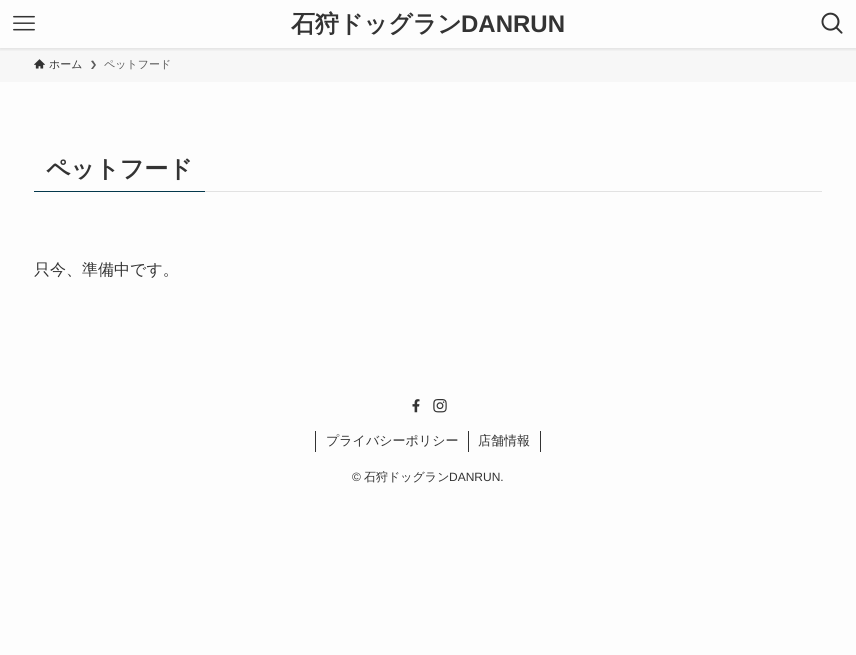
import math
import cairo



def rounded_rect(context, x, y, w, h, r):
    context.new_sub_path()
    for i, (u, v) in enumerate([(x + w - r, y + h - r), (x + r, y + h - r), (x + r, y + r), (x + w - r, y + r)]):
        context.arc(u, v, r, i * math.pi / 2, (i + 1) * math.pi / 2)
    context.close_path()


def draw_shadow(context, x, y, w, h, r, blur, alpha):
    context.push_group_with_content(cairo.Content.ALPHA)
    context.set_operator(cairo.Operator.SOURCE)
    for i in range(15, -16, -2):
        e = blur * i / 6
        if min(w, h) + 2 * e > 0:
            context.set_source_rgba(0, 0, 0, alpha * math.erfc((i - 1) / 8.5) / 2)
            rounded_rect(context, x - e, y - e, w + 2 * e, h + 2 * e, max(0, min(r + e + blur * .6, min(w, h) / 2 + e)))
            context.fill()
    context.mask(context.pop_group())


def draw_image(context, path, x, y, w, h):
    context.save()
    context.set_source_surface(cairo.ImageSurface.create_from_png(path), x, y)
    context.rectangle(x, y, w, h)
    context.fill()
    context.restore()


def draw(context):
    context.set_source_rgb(253 / 255, 253 / 255, 253 / 255)
    context.paint()
    context.set_source_rgb(247 / 255, 247 / 255, 247 / 255)
    context.rectangle(0, 48, 856, 34)
    context.fill()
    context.save()
    context.rectangle(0, 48, 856, 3)
    context.clip()
    context.set_source_rgb(0, 0, 0)
    draw_shadow(context, 0, 1, 856, 48, 0, 2, 0.12)
    context.restore()
    draw_image(context, "images/1.png", 13, 15, 22, 16)
    draw_image(context, "images/2.png", 821, 12, 22, 22)
    draw_image(context, "images/3.png", 34, 59, 11, 10)
    context.set_source_rgb(90 / 255, 90 / 255, 90 / 255)
    context.new_path()
    context.move_to(93, 60.5)
    context.line_to(91, 61)
    context.line_to(94, 65)
    context.line_to(91, 69)
    context.line_to(93, 69)
    context.line_to(96, 65)
    context.close_path()
    context.fill()
    context.set_source_rgb(226 / 255, 226 / 255, 226 / 255)
    context.rectangle(205, 191, 617, 1)
    context.fill()
    context.set_source_rgb(4 / 255, 56 / 255, 76 / 255)
    context.rectangle(34, 191, 171, 1)
    context.fill()
    draw_image(context, "images/4.png", 412, 399, 8, 14)
    draw_image(context, "images/5.png", 433, 399, 14, 14)
    context.set_source_rgb(51 / 255, 51 / 255, 51 / 255)
    context.rectangle(468, 431, 1, 21)
    context.fill()
    context.rectangle(315, 431, 1, 21)
    context.fill()
    context.rectangle(540, 431, 1, 21)
    context.fill()
    context.select_font_face("WenQuanYi Zen Hei", cairo.FontSlant.NORMAL, cairo.FontWeight.BOLD)
    context.set_font_size(24)
    context.move_to(291, 32)
    context.show_text("石狩ドッグラン")
    context.select_font_face("Liberation Sans", cairo.FontSlant.NORMAL, cairo.FontWeight.BOLD)
    context.move_to(461, 32)
    context.show_text("DANRUN")
    context.select_font_face("WenQuanYi Zen Hei Medium")
    context.set_font_size(11)
    context.move_to(49, 68)
    context.show_text("ホーム")
    context.set_source_rgb(90 / 255, 90 / 255, 90 / 255)
    context.move_to(104, 68)
    context.show_text("ペットフード")
    context.select_font_face("WenQuanYi Zen Hei", cairo.FontSlant.NORMAL, cairo.FontWeight.BOLD)
    context.set_font_size(24)
    context.set_source_rgb(51 / 255, 51 / 255, 51 / 255)
    context.move_to(46, 177)
    context.show_text("ペットフード")
    context.select_font_face("WenQuanYi Zen Hei Medium")
    context.set_font_size(16)
    context.move_to(34, 275)
    context.show_text("只今、準備中です。")
    context.set_font_size(13)
    context.move_to(326, 445)
    context.show_text("プライバシーポリシー")
    context.move_to(478, 445)
    context.show_text("店舗情報")
    context.select_font_face("Liberation Sans")
    context.set_font_size(12)
    context.move_to(352, 481)
    context.show_text("©")
    context.select_font_face("WenQuanYi Zen Hei Medium")
    context.move_to(364, 481)
    context.show_text("石狩ドッグラン")
    context.select_font_face("Liberation Sans")
    context.move_to(449, 481)
    context.show_text("DANRUN.")


surface = cairo.ImageSurface(cairo.Format.RGB24, 856, 655)
context = cairo.Context(surface)
options = cairo.FontOptions()
options.set_hint_metrics(cairo.HintMetrics.OFF)
options.set_hint_style(cairo.HintStyle.NONE)
context.set_font_options(options)
context.set_miter_limit(4)
draw(context)
surface.write_to_png("out.png")
